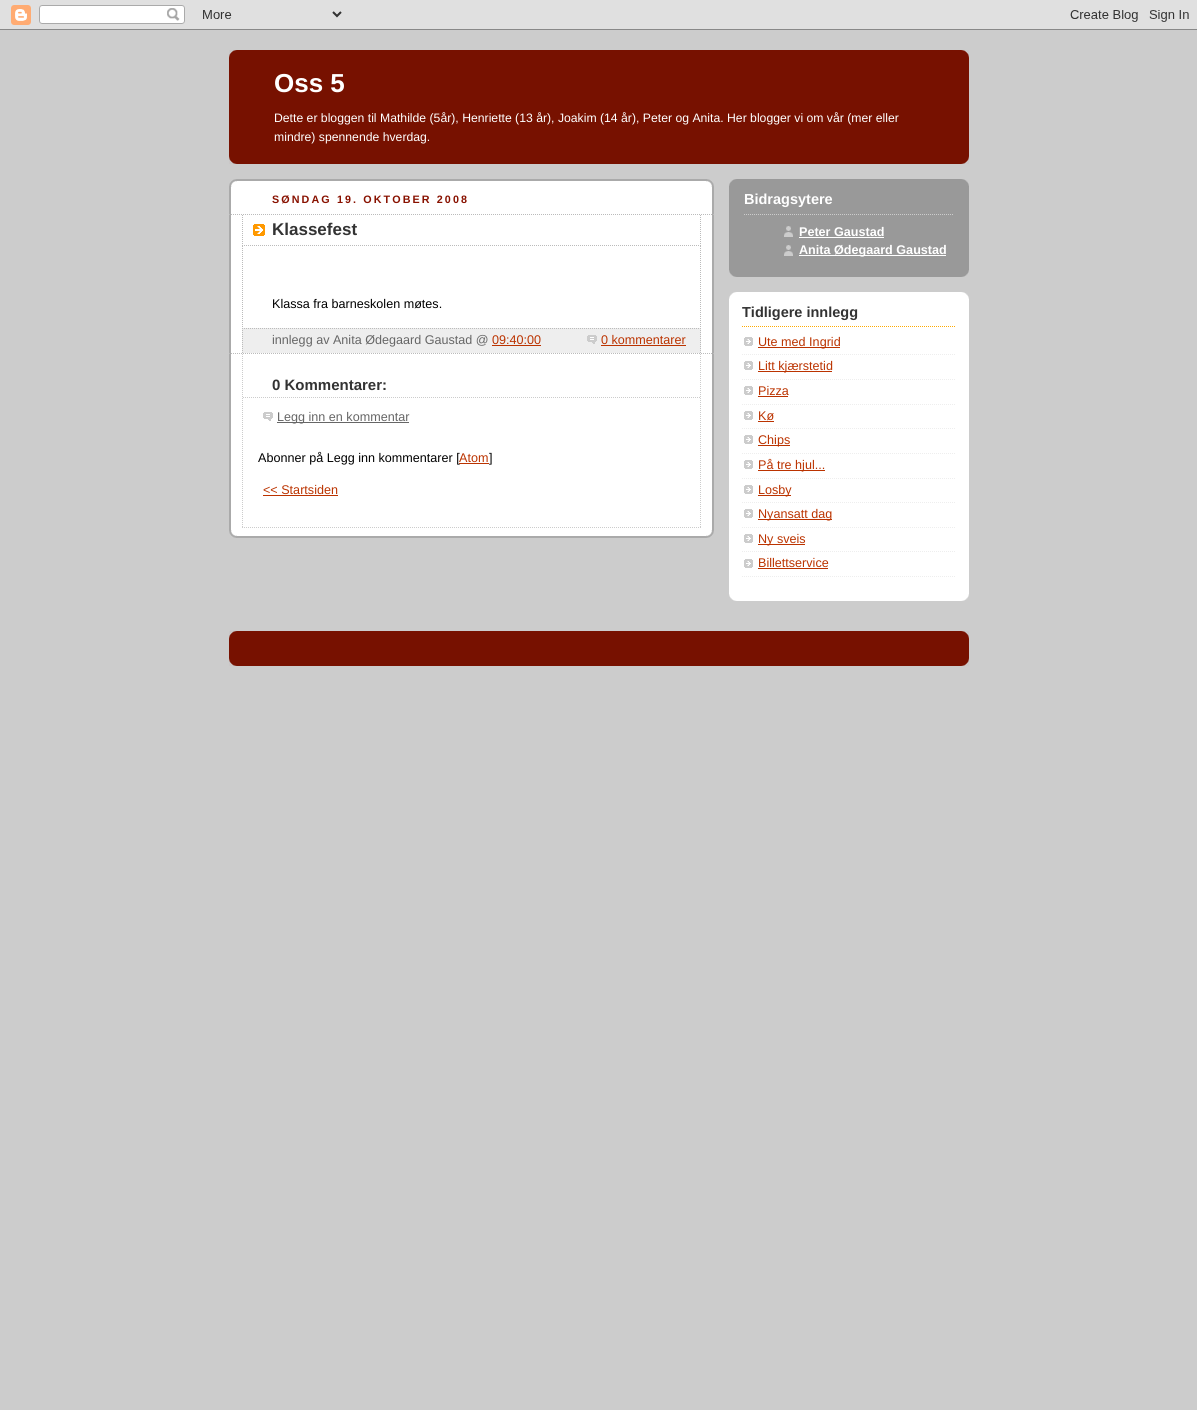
import math
import cairo



def draw_spaced(context, x, y, s, letter, word):
    context.move_to(x, y)
    for ch in s:
        context.show_text(ch)
        context.rel_move_to(letter + word * (ch == ' '), 0)


def draw_image(context, path, x, y, w, h):
    context.save()
    context.set_source_surface(cairo.ImageSurface.create_from_png(path), x, y)
    context.rectangle(x, y, w, h)
    context.fill()
    context.restore()


def draw(context):
    context.set_source_rgb(204 / 255, 204 / 255, 204 / 255)
    context.paint()
    draw_image(context, "images/1.png", 0, 0, 1197, 30)
    context.set_source_rgb(119 / 255, 17 / 255, 0)
    context.rectangle(229, 50, 740, 114)
    context.fill()
    draw_image(context, "images/2.png", 229, 50, 740, 8)
    draw_image(context, "images/3.png", 229, 156, 740, 8)
    context.set_source_rgb(1, 1, 1)
    context.rectangle(231, 181, 481, 355)
    context.fill()
    draw_image(context, "images/4.png", 229, 488, 485, 50)
    draw_image(context, "images/5.png", 229, 179, 485, 50)
    draw_image(context, "images/6.png", 229, 229, 485, 259)
    context.new_path()
    context.move_to(229, 214.5)
    context.line_to(714, 214.5)
    context.set_source_rgb(187 / 255, 187 / 255, 187 / 255)
    context.set_line_width(1)
    context.set_dash([1, 1])
    context.stroke()
    context.new_path()
    context.move_to(229, 353.5)
    context.line_to(714, 353.5)
    context.stroke()
    draw_image(context, "images/7.png", 253, 224, 12, 12)
    context.new_path()
    context.move_to(700.5, 215)
    context.line_to(700.5, 246)
    context.stroke()
    context.new_path()
    context.move_to(242, 245.5)
    context.line_to(701, 245.5)
    context.stroke()
    context.new_path()
    context.move_to(242.5, 215)
    context.line_to(242.5, 246)
    context.stroke()
    context.new_path()
    context.move_to(700.5, 246)
    context.line_to(700.5, 328)
    context.stroke()
    context.new_path()
    context.move_to(242.5, 246)
    context.line_to(242.5, 328)
    context.stroke()
    context.set_source_rgb(238 / 255, 238 / 255, 238 / 255)
    context.rectangle(242, 328, 459, 25)
    context.fill()
    context.new_path()
    context.move_to(242, 328.5)
    context.line_to(701, 328.5)
    context.set_source_rgb(187 / 255, 187 / 255, 187 / 255)
    context.stroke()
    context.new_path()
    context.move_to(700.5, 328)
    context.line_to(700.5, 353)
    context.stroke()
    context.new_path()
    context.move_to(242.5, 328)
    context.line_to(242.5, 353)
    context.stroke()
    context.set_source_rgb(187 / 255, 51 / 255, 0)
    context.rectangle(492, 345, 49, 1)
    context.fill()
    draw_image(context, "images/8.png", 587, 335, 10, 9)
    context.rectangle(601, 345, 85, 1)
    context.fill()
    context.new_path()
    context.move_to(700.5, 354)
    context.line_to(700.5, 528)
    context.set_source_rgb(204 / 255, 204 / 255, 204 / 255)
    context.stroke()
    context.new_path()
    context.move_to(242, 527.5)
    context.line_to(701, 527.5)
    context.stroke()
    context.new_path()
    context.move_to(242.5, 354)
    context.line_to(242.5, 528)
    context.stroke()
    context.new_path()
    context.move_to(243, 397.5)
    context.line_to(700, 397.5)
    context.stroke()
    draw_image(context, "images/9.png", 263, 412, 10, 9)
    context.set_source_rgb(102 / 255, 102 / 255, 102 / 255)
    context.rectangle(277, 422, 132, 1)
    context.fill()
    context.set_source_rgb(187 / 255, 51 / 255, 0)
    context.rectangle(263, 495, 75, 1)
    context.fill()
    context.set_source_rgb(153 / 255, 153 / 255, 153 / 255)
    context.rectangle(729, 179, 240, 98)
    context.fill()
    draw_image(context, "images/10.png", 729, 270, 240, 7)
    draw_image(context, "images/11.png", 729, 179, 240, 7)
    context.new_path()
    context.move_to(744, 214.5)
    context.line_to(954, 214.5)
    context.set_source_rgb(204 / 255, 204 / 255, 204 / 255)
    context.stroke()
    draw_image(context, "images/12.png", 784, 226, 9, 11)
    context.set_source_rgb(1, 1, 1)
    context.rectangle(799, 237, 85, 1)
    context.fill()
    draw_image(context, "images/12.png", 784, 245, 9, 11)
    context.rectangle(799, 255, 147, 1)
    context.fill()
    context.rectangle(729, 292, 240, 309)
    context.fill()
    draw_image(context, "images/13.png", 729, 292, 240, 7)
    draw_image(context, "images/14.png", 729, 594, 240, 7)
    context.new_path()
    context.move_to(742, 326.5)
    context.line_to(956, 326.5)
    context.set_source_rgb(1, 170 / 255, 0)
    context.stroke()
    draw_image(context, "images/15.png", 744, 337, 9, 9)
    context.new_path()
    context.move_to(742, 354.5)
    context.line_to(956, 354.5)
    context.set_source_rgb(238 / 255, 238 / 255, 238 / 255)
    context.stroke()
    context.set_source_rgb(187 / 255, 51 / 255, 0)
    context.rectangle(758, 347, 82, 1)
    context.fill()
    draw_image(context, "images/15.png", 744, 361, 9, 9)
    context.new_path()
    context.move_to(742, 379.5)
    context.line_to(956, 379.5)
    context.set_source_rgb(238 / 255, 238 / 255, 238 / 255)
    context.stroke()
    context.set_source_rgb(187 / 255, 51 / 255, 0)
    context.rectangle(758, 371, 74, 1)
    context.fill()
    draw_image(context, "images/15.png", 744, 386, 9, 9)
    context.new_path()
    context.move_to(742, 404.5)
    context.line_to(956, 404.5)
    context.set_source_rgb(238 / 255, 238 / 255, 238 / 255)
    context.stroke()
    context.set_source_rgb(187 / 255, 51 / 255, 0)
    context.rectangle(758, 396, 30, 1)
    context.fill()
    draw_image(context, "images/15.png", 744, 411, 9, 9)
    context.new_path()
    context.move_to(742, 428.5)
    context.line_to(956, 428.5)
    context.set_source_rgb(238 / 255, 238 / 255, 238 / 255)
    context.stroke()
    context.set_source_rgb(187 / 255, 51 / 255, 0)
    context.rectangle(758, 421, 16, 1)
    context.fill()
    draw_image(context, "images/15.png", 744, 435, 9, 9)
    context.new_path()
    context.move_to(742, 453.5)
    context.line_to(956, 453.5)
    context.set_source_rgb(238 / 255, 238 / 255, 238 / 255)
    context.stroke()
    context.set_source_rgb(187 / 255, 51 / 255, 0)
    context.rectangle(758, 445, 32, 1)
    context.fill()
    draw_image(context, "images/15.png", 744, 460, 9, 9)
    context.new_path()
    context.move_to(742, 478.5)
    context.line_to(956, 478.5)
    context.set_source_rgb(238 / 255, 238 / 255, 238 / 255)
    context.stroke()
    context.set_source_rgb(187 / 255, 51 / 255, 0)
    context.rectangle(758, 470, 67, 1)
    context.fill()
    draw_image(context, "images/15.png", 744, 485, 9, 9)
    context.new_path()
    context.move_to(742, 502.5)
    context.line_to(956, 502.5)
    context.set_source_rgb(238 / 255, 238 / 255, 238 / 255)
    context.stroke()
    context.set_source_rgb(187 / 255, 51 / 255, 0)
    context.rectangle(758, 495, 33, 1)
    context.fill()
    draw_image(context, "images/15.png", 744, 509, 9, 9)
    context.new_path()
    context.move_to(742, 527.5)
    context.line_to(956, 527.5)
    context.set_source_rgb(238 / 255, 238 / 255, 238 / 255)
    context.stroke()
    context.set_source_rgb(187 / 255, 51 / 255, 0)
    context.rectangle(758, 519, 74, 1)
    context.fill()
    draw_image(context, "images/15.png", 744, 534, 9, 9)
    context.new_path()
    context.move_to(742, 551.5)
    context.line_to(956, 551.5)
    context.set_source_rgb(238 / 255, 238 / 255, 238 / 255)
    context.stroke()
    context.set_source_rgb(187 / 255, 51 / 255, 0)
    context.rectangle(758, 544, 47, 1)
    context.fill()
    draw_image(context, "images/15.png", 744, 559, 9, 9)
    context.new_path()
    context.move_to(742, 576.5)
    context.line_to(956, 576.5)
    context.set_source_rgb(238 / 255, 238 / 255, 238 / 255)
    context.stroke()
    context.set_source_rgb(187 / 255, 51 / 255, 0)
    context.rectangle(758, 568, 70, 1)
    context.fill()
    context.set_source_rgb(119 / 255, 17 / 255, 0)
    context.rectangle(229, 631, 740, 35)
    context.fill()
    draw_image(context, "images/2.png", 229, 631, 740, 8)
    draw_image(context, "images/3.png", 229, 658, 740, 8)
    context.select_font_face("Liberation Sans", cairo.FontSlant.NORMAL, cairo.FontWeight.BOLD)
    context.set_font_size(26)
    context.set_source_rgb(1, 1, 1)
    context.move_to(274, 92)
    context.show_text("Oss 5")
    context.select_font_face("Liberation Sans")
    context.set_font_size(12.22)
    context.move_to(274, 122)
    context.show_text("Dette er bloggen til Mathilde (5år), Henriette (13 år), Joakim (14 år), Peter og Anita. Her blogger vi om vår (mer eller")
    context.move_to(274, 141)
    context.show_text("mindre) spennende hverdag.")
    context.select_font_face("Liberation Sans", cairo.FontSlant.NORMAL, cairo.FontWeight.BOLD)
    context.set_font_size(10.75)
    context.set_source_rgb(136 / 255, 17 / 255, 0)
    draw_spaced(context, 272, 203, "SØNDAG 19. OKTOBER 2008", 2.1, 0)
    context.set_font_size(17)
    context.set_source_rgb(51 / 255, 51 / 255, 51 / 255)
    context.move_to(272, 235)
    context.show_text("Klassefest")
    context.select_font_face("Liberation Sans")
    context.set_font_size(12.6)
    context.set_source_rgb(0, 0, 0)
    context.move_to(272, 308)
    context.show_text("Klassa fra barneskolen møtes.")
    context.set_source_rgb(102 / 255, 102 / 255, 102 / 255)
    context.move_to(272, 344)
    context.show_text("innlegg av Anita Ødegaard Gaustad @")
    context.set_source_rgb(187 / 255, 51 / 255, 0)
    context.move_to(492, 344)
    context.show_text("09:40:00")
    context.move_to(601, 344)
    context.show_text("0 kommentarer")
    context.select_font_face("Liberation Sans", cairo.FontSlant.NORMAL, cairo.FontWeight.BOLD)
    context.set_font_size(15)
    context.set_source_rgb(51 / 255, 51 / 255, 51 / 255)
    context.move_to(272, 390)
    context.show_text("0 Kommentarer:")
    context.select_font_face("Liberation Sans")
    context.set_font_size(12.6)
    context.set_source_rgb(102 / 255, 102 / 255, 102 / 255)
    context.move_to(277, 421)
    context.show_text("Legg inn en kommentar")
    context.set_source_rgb(0, 0, 0)
    context.move_to(258, 462)
    context.show_text("Abonner på Legg inn kommentarer [")
    context.set_source_rgb(187 / 255, 51 / 255, 0)
    context.move_to(459, 462)
    context.show_text("Atom")
    context.rectangle(459, 463, 30, 1)
    context.fill()
    context.set_source_rgb(0, 0, 0)
    context.move_to(489, 462)
    context.show_text("]")
    context.set_source_rgb(187 / 255, 51 / 255, 0)
    context.move_to(263, 494)
    context.show_text("<< Startsiden")
    context.select_font_face("Liberation Sans", cairo.FontSlant.NORMAL, cairo.FontWeight.BOLD)
    context.set_font_size(14.5)
    context.set_source_rgb(1, 1, 1)
    context.move_to(744, 204)
    context.show_text("Bidragsytere")
    context.set_font_size(12.6)
    context.move_to(799, 236)
    context.show_text("Peter Gaustad")
    context.move_to(799, 254)
    context.show_text("Anita Ødegaard Gaustad")
    context.set_font_size(14.5)
    context.set_source_rgb(51 / 255, 51 / 255, 51 / 255)
    context.move_to(742, 317)
    context.show_text("Tidligere innlegg")
    context.select_font_face("Liberation Sans")
    context.set_font_size(12.6)
    context.set_source_rgb(187 / 255, 51 / 255, 0)
    context.move_to(758, 346)
    context.show_text("Ute med Ingrid")
    context.move_to(758, 370)
    context.show_text("Litt kjærstetid")
    context.move_to(758, 395)
    context.show_text("Pizza")
    context.move_to(758, 420)
    context.show_text("Kø")
    context.move_to(758, 444)
    context.show_text("Chips")
    context.move_to(758, 469)
    context.show_text("På tre hjul...")
    context.move_to(758, 494)
    context.show_text("Losby")
    context.move_to(758, 518)
    context.show_text("Nyansatt dag")
    context.move_to(758, 543)
    context.show_text("Ny sveis")
    context.move_to(758, 567)
    context.show_text("Billettservice")


surface = cairo.ImageSurface(cairo.Format.RGB24, 1197, 1410)
context = cairo.Context(surface)
options = cairo.FontOptions()
options.set_hint_metrics(cairo.HintMetrics.OFF)
options.set_hint_style(cairo.HintStyle.NONE)
context.set_font_options(options)
context.set_miter_limit(4)
draw(context)
surface.write_to_png("out.png")
